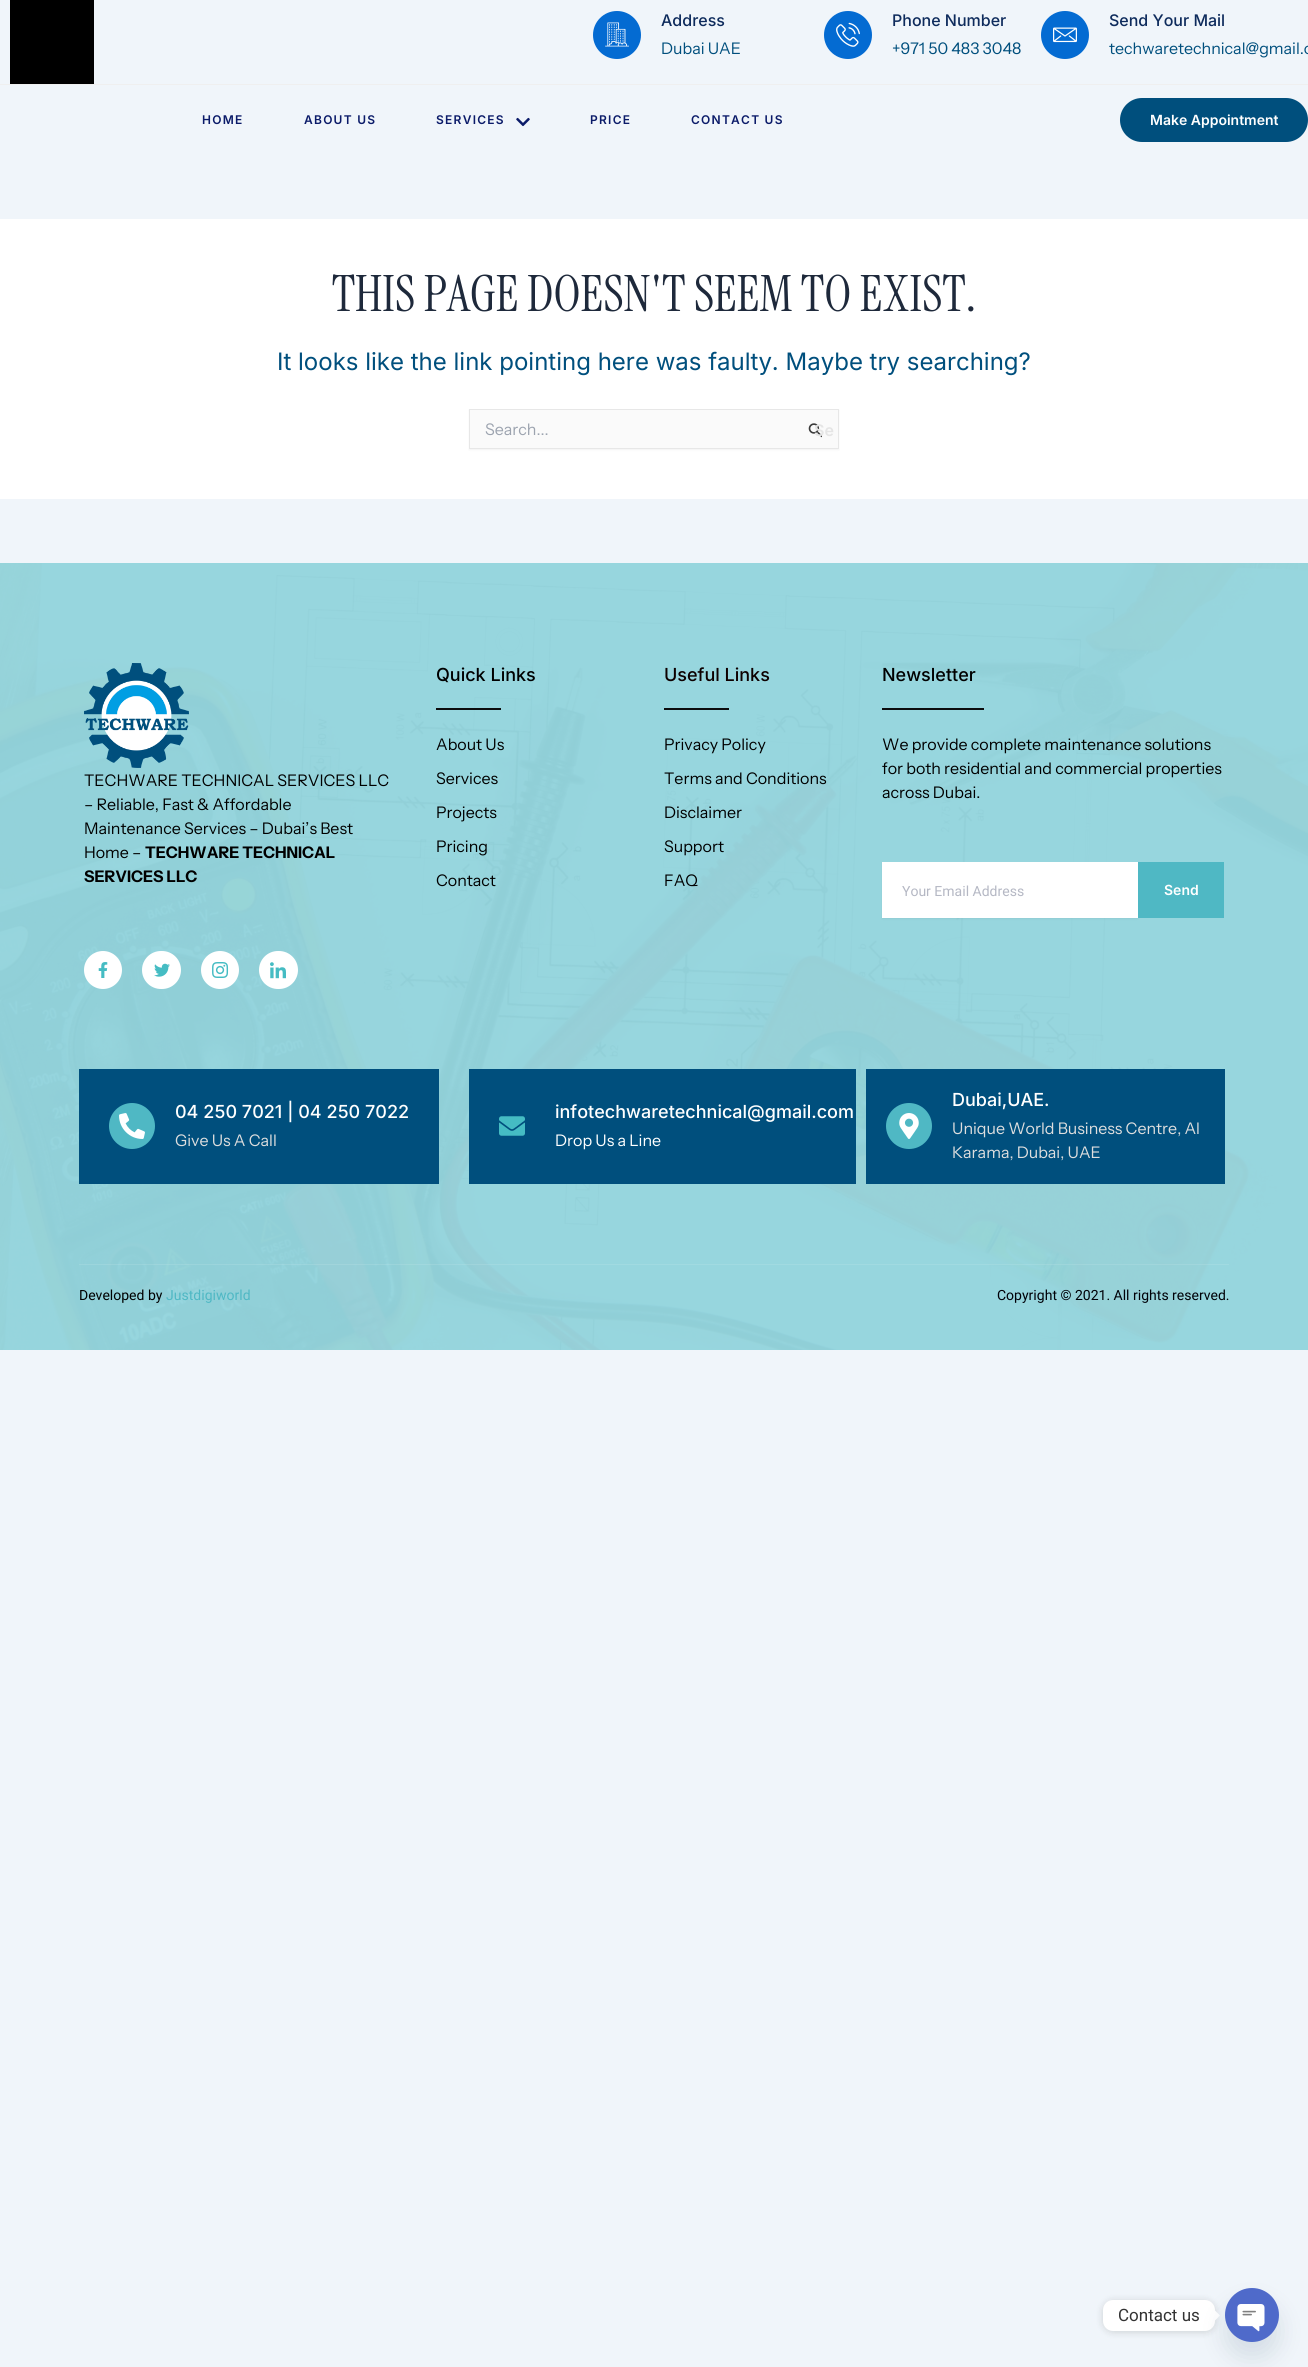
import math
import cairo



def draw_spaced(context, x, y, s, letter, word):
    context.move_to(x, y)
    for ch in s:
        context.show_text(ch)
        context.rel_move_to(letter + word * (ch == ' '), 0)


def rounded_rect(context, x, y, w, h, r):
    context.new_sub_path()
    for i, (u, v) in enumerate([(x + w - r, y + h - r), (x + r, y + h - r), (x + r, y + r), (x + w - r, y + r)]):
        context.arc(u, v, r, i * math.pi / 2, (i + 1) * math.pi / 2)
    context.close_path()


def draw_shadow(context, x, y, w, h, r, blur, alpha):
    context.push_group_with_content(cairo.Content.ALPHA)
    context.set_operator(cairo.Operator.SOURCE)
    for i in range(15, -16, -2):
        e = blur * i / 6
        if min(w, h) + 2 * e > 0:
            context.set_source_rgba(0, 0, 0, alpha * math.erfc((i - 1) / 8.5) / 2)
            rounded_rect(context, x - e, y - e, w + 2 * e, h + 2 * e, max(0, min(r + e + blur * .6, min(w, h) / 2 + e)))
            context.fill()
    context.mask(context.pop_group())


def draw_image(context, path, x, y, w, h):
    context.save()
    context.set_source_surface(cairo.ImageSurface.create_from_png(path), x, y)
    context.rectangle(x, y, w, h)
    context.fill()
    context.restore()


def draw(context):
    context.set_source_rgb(240 / 255, 245 / 255, 250 / 255)
    context.paint()
    context.set_source_rgb(0, 0, 0)
    context.rectangle(10, 0, 84, 84)
    context.fill()
    context.set_source_rgb(4 / 255, 107 / 255, 210 / 255)
    context.arc(617, 35, 24, 0, 2 * math.pi)
    context.fill()
    draw_image(context, "images/1.png", 605, 22, 24, 25)
    context.arc(848, 35, 24, 0, 2 * math.pi)
    context.fill()
    draw_image(context, "images/2.png", 836, 22, 24, 25)
    context.arc(1065, 35, 24, 0, 2 * math.pi)
    context.fill()
    draw_image(context, "images/3.png", 1053, 27, 24, 16)
    context.set_source_rgb(239 / 255, 239 / 255, 239 / 255)
    context.rectangle(0, 84, 1308, 1)
    context.fill()
    draw_image(context, "images/4.png", 516, 117, 14, 10)
    context.set_source_rgb(0, 79 / 255, 125 / 255)
    rounded_rect(context, 1120, 98, 188, 44, 22)
    context.fill()
    context.set_source_rgb(1, 1, 1)
    context.rectangle(0, 219, 1308, 280)
    context.fill()
    context.set_source_rgb(0, 0, 0)
    draw_shadow(context, 469, 410, 370, 40, 0, 1, 0.05)
    context.set_source_rgb(250 / 255, 250 / 255, 250 / 255)
    context.rectangle(469.5, 409.5, 369, 39)
    context.fill_preserve()
    context.set_source_rgb(231 / 255, 231 / 255, 231 / 255)
    context.set_line_width(1)
    context.stroke()
    draw_image(context, "images/5.png", 808, 423, 14, 15)
    context.set_source_rgb(148 / 255, 213 / 255, 221 / 255)
    context.rectangle(0, 563, 1308, 787)
    context.fill()
    draw_image(context, "images/6.png", 0, 563, 1308, 787)
    draw_image(context, "images/7.png", 84, 663, 105, 105)
    context.set_source_rgb(1, 1, 1)
    context.arc(103, 970, 19, 0, 2 * math.pi)
    context.fill()
    draw_image(context, "images/8.png", 98, 962, 10, 16)
    rounded_rect(context, 142, 951, 39, 38, 19)
    context.fill()
    draw_image(context, "images/9.png", 154, 963, 16, 14)
    context.arc(220, 970, 19, 0, 2 * math.pi)
    context.fill()
    draw_image(context, "images/10.png", 212, 962, 17, 16)
    rounded_rect(context, 259, 951, 39, 38, 19)
    context.fill()
    draw_image(context, "images/11.png", 270, 962, 16, 17)
    context.set_source_rgb(12 / 255, 13 / 255, 14 / 255)
    context.rectangle(436, 708, 65, 2)
    context.fill()
    context.rectangle(664, 708, 65, 2)
    context.fill()
    context.rectangle(882, 708, 102, 2)
    context.fill()
    context.set_source_rgb(0, 0, 0)
    draw_shadow(context, 882, 863, 256, 56, 0, 1, 0.05)
    context.set_source_rgb(1, 1, 1)
    context.rectangle(882, 862, 256, 56)
    context.fill()
    context.set_source_rgb(79 / 255, 184 / 255, 196 / 255)
    context.rectangle(1138, 862, 86, 56)
    context.fill()
    context.set_source_rgb(0, 79 / 255, 125 / 255)
    context.rectangle(79, 1069, 360, 115)
    context.fill()
    context.set_source_rgb(79 / 255, 184 / 255, 196 / 255)
    context.arc(132, 1126, 23, 0, 2 * math.pi)
    context.fill()
    draw_image(context, "images/12.png", 119, 1113, 26, 26)
    context.set_source_rgb(0, 79 / 255, 125 / 255)
    context.rectangle(469, 1069, 387, 115)
    context.fill()
    draw_image(context, "images/13.png", 499, 1116, 26, 20)
    context.rectangle(866, 1069, 359, 115)
    context.fill()
    context.set_source_rgb(79 / 255, 184 / 255, 196 / 255)
    context.arc(909, 1126, 23, 0, 2 * math.pi)
    context.fill()
    draw_image(context, "images/14.png", 899, 1113, 20, 26)
    context.set_source_rgba(1, 1, 1, 0.1)
    context.rectangle(79, 1264, 1150, 1)
    context.fill()
    context.set_source_rgb(0, 0, 0)
    draw_shadow(context, 1103, 2301, 112, 31, 10, 4, 0.15)
    context.set_source_rgb(1, 1, 1)
    rounded_rect(context, 1103, 2300, 112, 31, 10)
    context.fill()
    context.new_path()
    context.move_to(1215, 2320.5)
    context.line_to(1215, 2310.5)
    context.line_to(1220, 2315.5)
    context.close_path()
    context.fill()
    context.set_source_rgb(73 / 255, 104 / 255, 126 / 255)
    draw_shadow(context, 1225, 2304, 54, 54, 27, 12, 0.16)
    draw_image(context, "images/15.png", 1225, 2288, 54, 54)
    context.select_font_face("Inter Medium")
    context.set_font_size(16)
    context.set_source_rgb(14 / 255, 43 / 255, 92 / 255)
    context.move_to(661, 26)
    context.show_text("Address")
    context.select_font_face("Instrument Sans")
    context.set_source_rgb(0, 79 / 255, 125 / 255)
    context.move_to(661, 54)
    context.show_text("Dubai UAE")
    context.select_font_face("Inter Medium")
    context.set_source_rgb(14 / 255, 43 / 255, 92 / 255)
    context.move_to(892, 26)
    context.show_text("Phone Number")
    context.select_font_face("Instrument Sans")
    context.set_source_rgb(0, 79 / 255, 125 / 255)
    context.move_to(892, 54)
    context.show_text("+971 50 483 3048")
    context.select_font_face("Inter Medium")
    context.set_source_rgb(14 / 255, 43 / 255, 92 / 255)
    context.move_to(1109, 26)
    context.show_text("Send Your Mail")
    context.select_font_face("Instrument Sans")
    context.set_source_rgb(0, 79 / 255, 125 / 255)
    context.move_to(1109, 54)
    context.show_text("techwaretechnical@gmail.c")
    context.select_font_face("Inter SemiBold")
    context.set_font_size(12)
    context.set_source_rgb(11 / 255, 27 / 255, 105 / 255)
    draw_spaced(context, 202, 124, "HOME", 1.25, 0)
    draw_spaced(context, 304, 124, "ABOUT US", 1.25, 0)
    draw_spaced(context, 436, 124, "SERVICES", 1.25, 0)
    draw_spaced(context, 590, 124, "PRICE", 1.25, 0)
    draw_spaced(context, 691, 124, "CONTACT US", 1.25, 0)
    context.set_font_size(14)
    context.set_source_rgb(1, 1, 1)
    context.move_to(1150, 125)
    context.show_text("Make Appointment")
    context.select_font_face("Instrument Serif")
    context.set_font_size(50)
    context.set_source_rgb(30 / 255, 41 / 255, 59 / 255)
    context.move_to(332, 311)
    context.show_text("THIS PAGE DOESN'T SEEM TO EXIST.")
    context.select_font_face("Inter")
    context.set_font_size(24)
    context.set_source_rgb(0, 79 / 255, 125 / 255)
    context.move_to(277, 370)
    context.show_text("It looks like the link pointing here was faulty. Maybe try searching?")
    context.select_font_face("Instrument Sans")
    context.set_font_size(16)
    context.set_source_rgb(156 / 255, 163 / 255, 175 / 255)
    context.move_to(485, 435)
    context.show_text("Search...")
    context.select_font_face("Inter SemiBold")
    context.set_source_rgb(229 / 255, 229 / 255, 229 / 255)
    context.move_to(814, 436)
    context.show_text("Se")
    context.select_font_face("Instrument Sans")
    context.set_source_rgb(0, 0, 0)
    context.move_to(84, 786)
    context.show_text("TECHWARE TECHNICAL SERVICES LLC")
    context.move_to(84, 810)
    context.show_text("– Reliable, Fast & Affordable")
    context.move_to(84, 834)
    context.show_text("Maintenance Services – Dubai’s Best")
    context.move_to(84, 858)
    context.show_text("Home –")
    context.select_font_face("Instrument Sans", cairo.FontSlant.NORMAL, cairo.FontWeight.BOLD)
    context.move_to(145, 858)
    context.show_text("TECHWARE TECHNICAL")
    context.move_to(84, 882)
    context.show_text("SERVICES LLC")
    context.select_font_face("Inter Medium")
    context.set_font_size(18)
    context.move_to(436, 681)
    context.show_text("Quick Links")
    context.select_font_face("Instrument Sans")
    context.set_font_size(16)
    context.move_to(436, 750)
    context.show_text("About Us")
    context.move_to(436, 784)
    context.show_text("Services")
    context.move_to(436, 818)
    context.show_text("Projects")
    context.move_to(436, 852)
    context.show_text("Pricing")
    context.move_to(436, 886)
    context.show_text("Contact")
    context.select_font_face("Inter Medium")
    context.set_font_size(18)
    context.set_source_rgb(13 / 255, 0, 0)
    context.move_to(664, 681)
    context.show_text("Useful Links")
    context.select_font_face("Instrument Sans")
    context.set_font_size(16)
    context.set_source_rgb(0, 0, 0)
    context.move_to(664, 750)
    context.show_text("Privacy Policy")
    context.move_to(664, 784)
    context.show_text("Terms and Conditions")
    context.move_to(664, 818)
    context.show_text("Disclaimer")
    context.move_to(664, 852)
    context.show_text("Support")
    context.move_to(664, 886)
    context.show_text("FAQ")
    context.select_font_face("Inter Medium")
    context.set_font_size(18)
    context.move_to(882, 681)
    context.show_text("Newsletter")
    context.select_font_face("Instrument Sans")
    context.set_font_size(16)
    context.move_to(882, 750)
    context.show_text("We provide complete maintenance solutions")
    context.move_to(882, 774)
    context.show_text("for both residential and commercial properties")
    context.move_to(882, 798)
    context.show_text("across Dubai.")
    context.select_font_face("Heebo")
    context.set_font_size(14)
    context.set_source_rgb(181 / 255, 184 / 255, 196 / 255)
    context.move_to(902, 896)
    context.show_text("Your Email Address")
    context.select_font_face("Inter SemiBold")
    context.set_source_rgb(1, 1, 1)
    context.move_to(1164, 895)
    context.show_text("Send")
    context.select_font_face("Inter Medium")
    context.set_font_size(18)
    context.move_to(175, 1118)
    context.show_text("04 250 7021 | 04 250 7022")
    context.select_font_face("Instrument Sans")
    context.set_font_size(16)
    context.set_source_rgb(222 / 255, 222 / 255, 222 / 255)
    context.move_to(175, 1146)
    context.show_text("Give Us A Call")
    context.select_font_face("Inter Medium")
    context.set_font_size(18)
    context.set_source_rgb(1, 1, 1)
    context.move_to(555, 1118)
    context.show_text("infotechwaretechnical@gmail.com")
    context.select_font_face("Instrument Sans")
    context.set_font_size(16)
    context.move_to(555, 1146)
    context.show_text("Drop Us a Line")
    context.select_font_face("Inter Medium")
    context.set_font_size(18)
    context.move_to(952, 1106)
    context.show_text("Dubai,UAE.")
    context.select_font_face("Instrument Sans")
    context.set_font_size(16)
    context.set_source_rgb(222 / 255, 222 / 255, 222 / 255)
    context.move_to(952, 1134)
    context.show_text("Unique World Business Centre, Al")
    context.move_to(952, 1158)
    context.show_text("Karama, Dubai, UAE")
    context.select_font_face("Heebo")
    context.set_font_size(14)
    context.set_source_rgb(0, 0, 0)
    context.move_to(79, 1300)
    context.show_text("Developed by")
    context.set_source_rgb(79 / 255, 184 / 255, 196 / 255)
    context.move_to(166, 1300)
    context.show_text("Justdigiworld")
    context.set_source_rgb(0, 1 / 255, 8 / 255)
    context.move_to(997, 1300)
    context.show_text("Copyright © 2021. All rights reserved.")
    context.select_font_face("Roboto")
    context.set_font_size(17)
    context.set_source_rgb(51 / 255, 51 / 255, 51 / 255)
    context.move_to(1118, 2321)
    context.show_text("Contact us")


surface = cairo.ImageSurface(cairo.Format.RGB24, 1308, 2367)
context = cairo.Context(surface)
options = cairo.FontOptions()
options.set_hint_metrics(cairo.HintMetrics.OFF)
options.set_hint_style(cairo.HintStyle.NONE)
context.set_font_options(options)
context.set_miter_limit(4)
draw(context)
surface.write_to_png("out.png")
